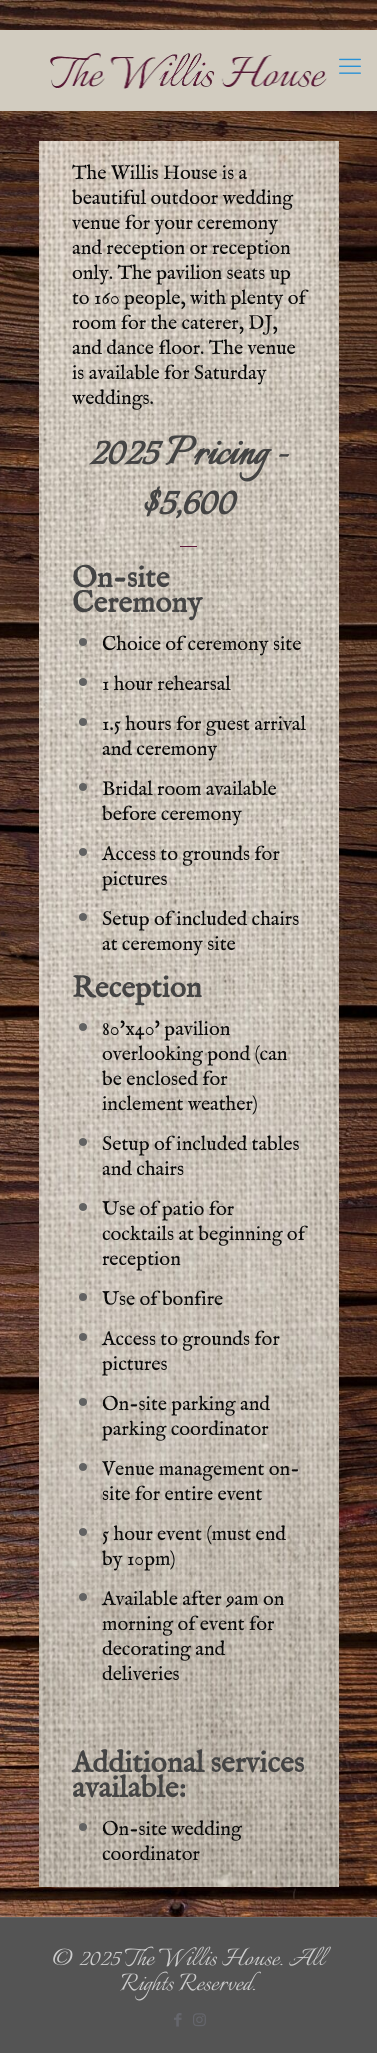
import math
import cairo



def draw_image(context, path, x, y, w, h):
    context.save()
    context.set_source_surface(cairo.ImageSurface.create_from_png(path), x, y)
    context.rectangle(x, y, w, h)
    context.fill()
    context.restore()


def draw(context):
    context.set_source_rgb(1, 1, 1)
    context.paint()
    draw_image(context, "images/1.png", 0, 0, 377, 1917)
    context.set_source_rgb(210 / 255, 204 / 255, 192 / 255)
    context.rectangle(0, 30, 377, 81)
    context.fill()
    draw_image(context, "images/2.png", 50, 53, 277, 36)
    draw_image(context, "images/3.png", 339, 58, 22, 16)
    draw_image(context, "images/4.png", 39, 141, 300, 1746)
    context.set_source_rgb(91 / 255, 21 / 255, 54 / 255)
    context.rectangle(180, 546, 17, 1)
    context.fill()
    context.set_source_rgb(98 / 255, 98 / 255, 98 / 255)
    context.arc(83, 642, 4, 0, 2 * math.pi)
    context.fill()
    context.arc(83, 682, 4, 0, 2 * math.pi)
    context.fill()
    context.arc(83, 722, 4, 0, 2 * math.pi)
    context.fill()
    context.arc(83, 787, 4, 0, 2 * math.pi)
    context.fill()
    context.arc(83, 852, 4, 0, 2 * math.pi)
    context.fill()
    context.arc(83, 917, 4, 0, 2 * math.pi)
    context.fill()
    context.arc(83, 1027, 4, 0, 2 * math.pi)
    context.fill()
    context.arc(83, 1142, 4, 0, 2 * math.pi)
    context.fill()
    context.arc(83, 1207, 4, 0, 2 * math.pi)
    context.fill()
    context.arc(83, 1297, 4, 0, 2 * math.pi)
    context.fill()
    context.arc(83, 1337, 4, 0, 2 * math.pi)
    context.fill()
    context.arc(83, 1402, 4, 0, 2 * math.pi)
    context.fill()
    context.arc(83, 1467, 4, 0, 2 * math.pi)
    context.fill()
    context.arc(83, 1532, 4, 0, 2 * math.pi)
    context.fill()
    context.arc(83, 1597, 4, 0, 2 * math.pi)
    context.fill()
    context.arc(83, 1827, 4, 0, 2 * math.pi)
    context.fill()
    context.set_source_rgb(84 / 255, 84 / 255, 84 / 255)
    context.rectangle(0, 1918, 377, 135)
    context.fill()
    context.set_source_rgb(101 / 255, 101 / 255, 101 / 255)
    context.rectangle(0, 1917, 377, 1)
    context.fill()
    draw_image(context, "images/5.png", 174, 2013, 8, 14)
    draw_image(context, "images/6.png", 193, 2013, 13, 14)
    context.select_font_face("IM FELL English")
    context.set_font_size(20)
    context.set_source_rgb(10 / 255, 10 / 255, 10 / 255)
    context.move_to(72, 179)
    context.show_text("The Willis House is a")
    context.move_to(72, 204)
    context.show_text("beautiful outdoor wedding")
    context.move_to(72, 229)
    context.show_text("venue for your ceremony")
    context.move_to(72, 254)
    context.show_text("and reception or reception")
    context.move_to(72, 279)
    context.show_text("only. The pavilion seats up")
    context.move_to(72, 304)
    context.show_text("to 160 people, with plenty of")
    context.move_to(72, 329)
    context.show_text("room for the caterer, DJ,")
    context.move_to(72, 354)
    context.show_text("and dance floor. The venue")
    context.move_to(72, 379)
    context.show_text("is available for Saturday")
    context.move_to(72, 404)
    context.show_text("weddings.")
    context.select_font_face("Italianno", cairo.FontSlant.NORMAL, cairo.FontWeight.BOLD)
    context.set_font_size(50)
    context.set_source_rgb(68 / 255, 68 / 255, 68 / 255)
    context.move_to(89, 464)
    context.show_text("2025 Pricing -")
    context.move_to(142, 514)
    context.show_text("$5,600")
    context.select_font_face("IM FELL English", cairo.FontSlant.NORMAL, cairo.FontWeight.BOLD)
    context.set_font_size(30)
    context.move_to(72, 587)
    context.show_text("On-site")
    context.move_to(72, 612)
    context.show_text("Ceremony")
    context.select_font_face("IM FELL English")
    context.set_font_size(20)
    context.set_source_rgb(10 / 255, 10 / 255, 10 / 255)
    context.move_to(102, 650)
    context.show_text("Choice of ceremony site")
    context.move_to(102, 690)
    context.show_text("1 hour rehearsal")
    context.move_to(102, 730)
    context.show_text("1.5 hours for guest arrival")
    context.move_to(102, 755)
    context.show_text("and ceremony")
    context.move_to(102, 795)
    context.show_text("Bridal room available")
    context.move_to(102, 820)
    context.show_text("before ceremony")
    context.move_to(102, 860)
    context.show_text("Access to grounds for")
    context.move_to(102, 885)
    context.show_text("pictures")
    context.move_to(102, 925)
    context.show_text("Setup of included chairs")
    context.move_to(102, 950)
    context.show_text("at ceremony site")
    context.select_font_face("IM FELL English", cairo.FontSlant.NORMAL, cairo.FontWeight.BOLD)
    context.set_font_size(30)
    context.set_source_rgb(68 / 255, 68 / 255, 68 / 255)
    context.move_to(72, 997)
    context.show_text("Reception")
    context.select_font_face("IM FELL English")
    context.set_font_size(20)
    context.set_source_rgb(10 / 255, 10 / 255, 10 / 255)
    context.move_to(102, 1035)
    context.show_text("80'x40' pavilion")
    context.move_to(102, 1060)
    context.show_text("overlooking pond (can")
    context.move_to(102, 1085)
    context.show_text("be enclosed for")
    context.move_to(102, 1110)
    context.show_text("inclement weather)")
    context.move_to(102, 1150)
    context.show_text("Setup of included tables")
    context.move_to(102, 1175)
    context.show_text("and chairs")
    context.move_to(102, 1215)
    context.show_text("Use of patio for")
    context.move_to(102, 1240)
    context.show_text("cocktails at beginning of")
    context.move_to(102, 1265)
    context.show_text("reception")
    context.move_to(102, 1305)
    context.show_text("Use of bonfire")
    context.move_to(102, 1345)
    context.show_text("Access to grounds for")
    context.move_to(102, 1370)
    context.show_text("pictures")
    context.move_to(102, 1410)
    context.show_text("On-site parking and")
    context.move_to(102, 1435)
    context.show_text("parking coordinator")
    context.move_to(102, 1475)
    context.show_text("Venue management on-")
    context.move_to(102, 1500)
    context.show_text("site for entire event")
    context.move_to(102, 1540)
    context.show_text("5 hour event (must end")
    context.move_to(102, 1565)
    context.show_text("by 10pm)")
    context.move_to(102, 1605)
    context.show_text("Available after 9am on")
    context.move_to(102, 1630)
    context.show_text("morning of event for")
    context.move_to(102, 1655)
    context.show_text("decorating and")
    context.move_to(102, 1680)
    context.show_text("deliveries")
    context.select_font_face("IM FELL English", cairo.FontSlant.NORMAL, cairo.FontWeight.BOLD)
    context.set_font_size(30)
    context.set_source_rgb(68 / 255, 68 / 255, 68 / 255)
    context.move_to(72, 1772)
    context.show_text("Additional services")
    context.move_to(72, 1797)
    context.show_text("available:")
    context.select_font_face("IM FELL English")
    context.set_font_size(20)
    context.set_source_rgb(10 / 255, 10 / 255, 10 / 255)
    context.move_to(102, 1835)
    context.show_text("On-site wedding")
    context.move_to(102, 1860)
    context.show_text("coordinator")
    context.select_font_face("Italianno")
    context.set_font_size(30)
    context.set_source_rgb(204 / 255, 204 / 255, 204 / 255)
    context.move_to(52, 1965)
    context.show_text("© 2025 The Willis House. All")
    context.move_to(120, 1990)
    context.show_text("Rights Reserved.")


surface = cairo.ImageSurface(cairo.Format.RGB24, 377, 2053)
context = cairo.Context(surface)
options = cairo.FontOptions()
options.set_hint_metrics(cairo.HintMetrics.OFF)
options.set_hint_style(cairo.HintStyle.NONE)
context.set_font_options(options)
context.set_miter_limit(4)
draw(context)
surface.write_to_png("out.png")
